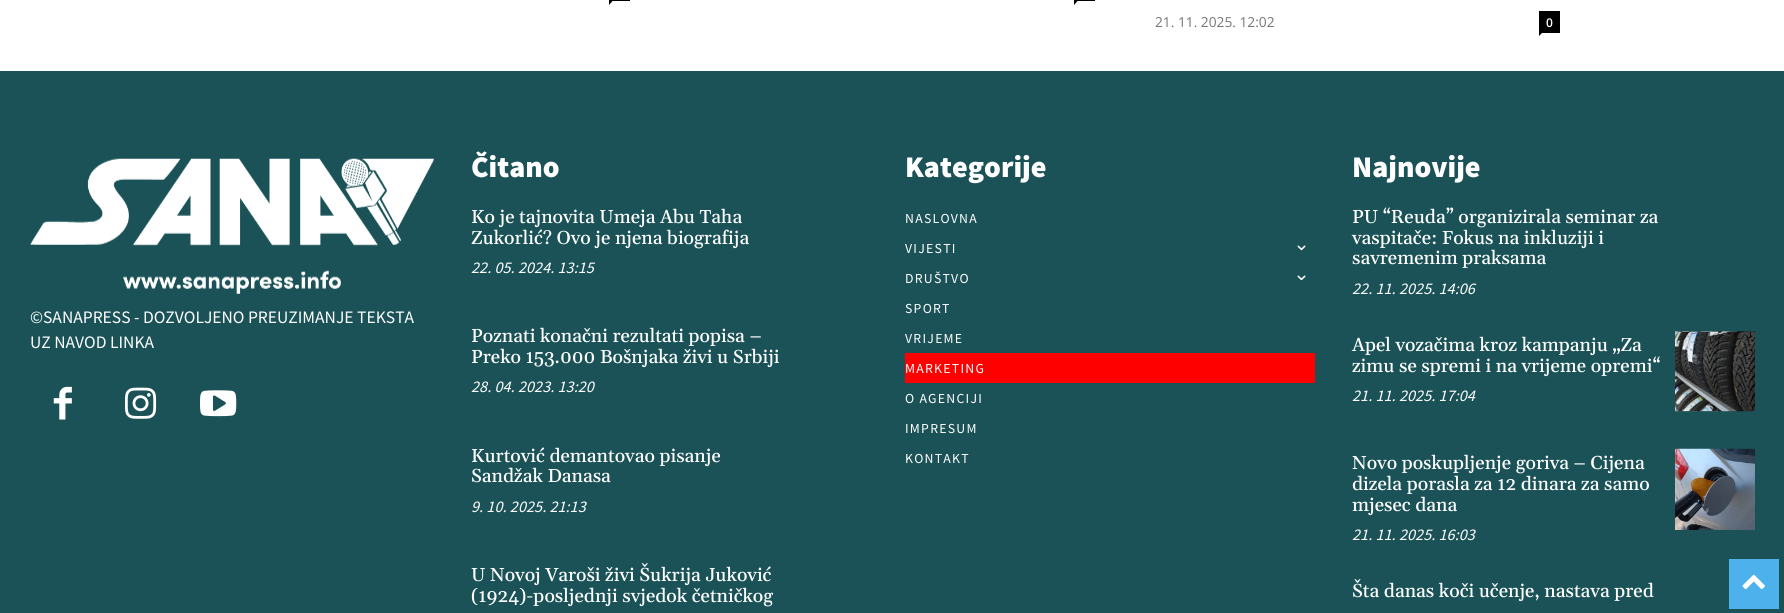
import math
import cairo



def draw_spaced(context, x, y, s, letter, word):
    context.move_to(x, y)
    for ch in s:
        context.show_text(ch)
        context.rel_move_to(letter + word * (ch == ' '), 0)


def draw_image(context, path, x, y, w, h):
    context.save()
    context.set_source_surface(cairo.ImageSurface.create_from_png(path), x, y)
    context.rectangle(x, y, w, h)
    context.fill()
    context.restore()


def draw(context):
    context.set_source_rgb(1, 1, 1)
    context.paint()
    context.set_source_rgb(0, 0, 0)
    context.rectangle(609, 0, 21, 1)
    context.fill()
    context.new_path()
    context.move_to(609, 1)
    context.line_to(612.5, 1)
    context.line_to(609, 5)
    context.close_path()
    context.fill()
    context.rectangle(1074, 0, 21, 1)
    context.fill()
    context.new_path()
    context.move_to(1074, 1)
    context.line_to(1077.5, 1)
    context.line_to(1074, 5)
    context.close_path()
    context.fill()
    context.rectangle(1539, 11, 21, 22)
    context.fill()
    context.new_path()
    context.move_to(1539, 32.5)
    context.line_to(1542.5, 32.5)
    context.line_to(1539, 36)
    context.close_path()
    context.fill()
    context.set_source_rgb(26 / 255, 82 / 255, 87 / 255)
    context.rectangle(0, 71, 1784, 542)
    context.fill()
    draw_image(context, "images/1.png", 30, 158, 404, 136)
    draw_image(context, "images/2.png", 53, 386, 19, 34)
    draw_image(context, "images/3.png", 125, 387, 32, 32)
    draw_image(context, "images/4.png", 200, 390, 37, 27)
    draw_image(context, "images/5.png", 1297, 245, 9, 6)
    draw_image(context, "images/5.png", 1297, 275, 9, 6)
    context.set_source_rgb(1, 0, 0)
    context.rectangle(905, 353, 410, 30)
    context.fill()
    draw_image(context, "images/6.png", 1675, 331, 80, 81)
    draw_image(context, "images/7.png", 1675, 448, 80, 82)
    context.set_source_rgb(77 / 255, 178 / 255, 236 / 255)
    context.rectangle(1729, 559, 50, 50)
    context.fill()
    draw_image(context, "images/8.png", 1742, 574, 23, 16)
    context.select_font_face("Open Sans")
    context.set_font_size(13.75)
    context.set_source_rgb(118 / 255, 118 / 255, 118 / 255)
    context.move_to(1155, 27)
    context.show_text("21. 11. 2025. 12:02")
    context.select_font_face("Open Sans SemiBold")
    context.set_font_size(12)
    context.set_source_rgb(1, 1, 1)
    context.move_to(1546, 27)
    context.show_text("0")
    context.select_font_face("Source Sans Pro")
    context.set_font_size(17.5)
    context.move_to(30, 323)
    context.show_text("©SANAPRESS - DOZVOLJENO PREUZIMANJE TEKSTA")
    context.move_to(30, 348)
    context.show_text("UZ NAVOD LINKA")
    context.select_font_face("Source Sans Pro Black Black")
    context.set_font_size(30)
    context.move_to(471, 177)
    context.show_text("Čitano")
    context.select_font_face("Gelasio Medium")
    context.set_font_size(18.75)
    context.move_to(471, 223)
    context.show_text("Ko je tajnovita Umeja Abu Taha")
    context.move_to(471, 244)
    context.show_text("Zukorlić? Ovo je njena biografija")
    context.select_font_face("Source Sans Pro", cairo.FontSlant.ITALIC)
    context.set_font_size(16.25)
    context.move_to(471, 273)
    context.show_text("22. 05. 2024. 13:15")
    context.select_font_face("Gelasio Medium")
    context.set_font_size(18.75)
    context.move_to(471, 342)
    context.show_text("Poznati konačni rezultati popisa –")
    context.move_to(471, 363)
    context.show_text("Preko 153.000 Bošnjaka živi u Srbiji")
    context.select_font_face("Source Sans Pro", cairo.FontSlant.ITALIC)
    context.set_font_size(16.25)
    context.move_to(471, 392)
    context.show_text("28. 04. 2023. 13:20")
    context.select_font_face("Gelasio Medium")
    context.set_font_size(18.75)
    context.move_to(471, 462)
    context.show_text("Kurtović demantovao pisanje")
    context.move_to(471, 482)
    context.show_text("Sandžak Danasa")
    context.select_font_face("Source Sans Pro", cairo.FontSlant.ITALIC)
    context.set_font_size(16.25)
    context.move_to(471, 512)
    context.show_text("9. 10. 2025. 21:13")
    context.select_font_face("Gelasio Medium")
    context.set_font_size(18.75)
    context.move_to(471, 581)
    context.show_text("U Novoj Varoši živi Šukrija Juković")
    context.move_to(471, 602)
    context.show_text("(1924)-posljednji svjedok četničkog")
    context.select_font_face("Source Sans Pro Black Black")
    context.set_font_size(30)
    context.move_to(905, 177)
    context.show_text("Kategorije")
    context.select_font_face("Source Sans Pro")
    context.set_font_size(13.75)
    draw_spaced(context, 905, 223, "NASLOVNA", 1.25, 0)
    draw_spaced(context, 905, 253, "VIJESTI", 1.25, 0)
    draw_spaced(context, 905, 283, "DRUŠTVO", 1.25, 0)
    draw_spaced(context, 905, 313, "SPORT", 1.25, 0)
    draw_spaced(context, 905, 343, "VRIJEME", 1.25, 0)
    draw_spaced(context, 905, 373, "MARKETING", 1.25, 0)
    draw_spaced(context, 905, 403, "O AGENCIJI", 1.25, 0)
    draw_spaced(context, 905, 433, "IMPRESUM", 1.25, 0)
    draw_spaced(context, 905, 463, "KONTAKT", 1.25, 0)
    context.select_font_face("Source Sans Pro Black Black")
    context.set_font_size(30)
    context.move_to(1352, 177)
    context.show_text("Najnovije")
    context.select_font_face("Gelasio Medium")
    context.set_font_size(18.75)
    context.move_to(1352, 223)
    context.show_text("PU “Reuda” organizirala seminar za")
    context.move_to(1352, 244)
    context.show_text("vaspitače: Fokus na inkluziji i")
    context.move_to(1352, 264)
    context.show_text("savremenim praksama")
    context.select_font_face("Source Sans Pro", cairo.FontSlant.ITALIC)
    context.set_font_size(16.25)
    context.move_to(1352, 294)
    context.show_text("22. 11. 2025. 14:06")
    context.select_font_face("Gelasio Medium")
    context.set_font_size(18.75)
    context.move_to(1352, 351)
    context.show_text("Apel vozačima kroz kampanju „Za")
    context.move_to(1352, 372)
    context.show_text("zimu se spremi i na vrijeme opremi“")
    context.select_font_face("Source Sans Pro", cairo.FontSlant.ITALIC)
    context.set_font_size(16.25)
    context.move_to(1352, 401)
    context.show_text("21. 11. 2025. 17:04")
    context.select_font_face("Gelasio Medium")
    context.set_font_size(18.75)
    context.move_to(1352, 469)
    context.show_text("Novo poskupljenje goriva – Cijena")
    context.move_to(1352, 490)
    context.show_text("dizela porasla za 12 dinara za samo")
    context.move_to(1352, 511)
    context.show_text("mjesec dana")
    context.select_font_face("Source Sans Pro", cairo.FontSlant.ITALIC)
    context.set_font_size(16.25)
    context.move_to(1352, 540)
    context.show_text("21. 11. 2025. 16:03")
    context.select_font_face("Gelasio Medium")
    context.set_font_size(18.75)
    context.move_to(1352, 597)
    context.show_text("Šta danas koči učenje, nastava pred")


surface = cairo.ImageSurface(cairo.Format.RGB24, 1784, 613)
context = cairo.Context(surface)
options = cairo.FontOptions()
options.set_hint_metrics(cairo.HintMetrics.OFF)
options.set_hint_style(cairo.HintStyle.NONE)
context.set_font_options(options)
context.set_miter_limit(4)
draw(context)
surface.write_to_png("out.png")
